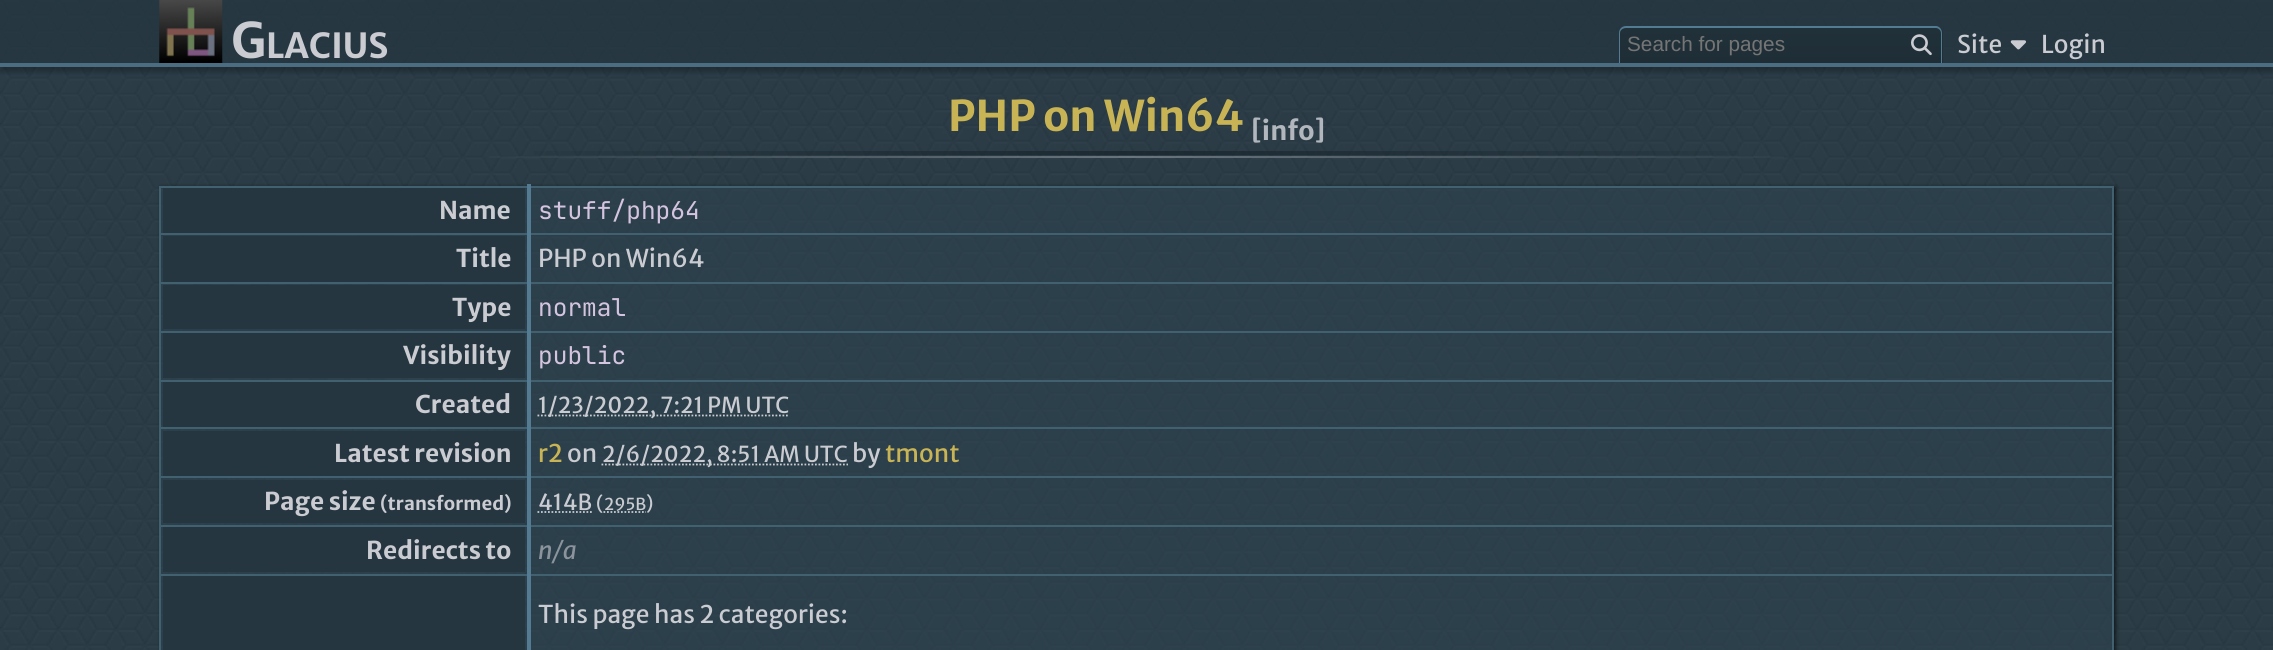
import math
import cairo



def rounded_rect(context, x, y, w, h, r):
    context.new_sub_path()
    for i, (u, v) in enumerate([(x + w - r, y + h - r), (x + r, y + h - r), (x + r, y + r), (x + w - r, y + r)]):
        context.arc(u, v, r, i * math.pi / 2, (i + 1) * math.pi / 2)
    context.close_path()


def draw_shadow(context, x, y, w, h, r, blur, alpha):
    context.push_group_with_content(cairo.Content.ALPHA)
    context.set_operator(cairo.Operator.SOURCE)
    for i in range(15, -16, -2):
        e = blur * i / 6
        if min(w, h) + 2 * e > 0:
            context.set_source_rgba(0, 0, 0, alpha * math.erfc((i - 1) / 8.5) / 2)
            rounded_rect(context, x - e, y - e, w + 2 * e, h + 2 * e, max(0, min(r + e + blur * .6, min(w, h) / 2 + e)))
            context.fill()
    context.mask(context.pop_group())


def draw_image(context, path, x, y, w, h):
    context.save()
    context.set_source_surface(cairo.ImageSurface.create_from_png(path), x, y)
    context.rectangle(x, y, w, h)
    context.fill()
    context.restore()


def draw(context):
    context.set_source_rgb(46 / 255, 68 / 255, 80 / 255)
    context.paint()
    draw_image(context, "images/1.png", 0, 0, 2273, 650)
    context.save()
    context.rectangle(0, 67, 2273, 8)
    context.clip()
    context.set_source_rgb(0, 0, 0)
    draw_shadow(context, 0, 5, 2273, 67, 0, 2.5, 0.25)
    context.restore()
    context.set_source_rgba(37 / 255, 54 / 255, 64 / 255, 0.75)
    context.rectangle(0, 0, 2273, 63)
    context.fill()
    context.set_source_rgb(74 / 255, 109 / 255, 129 / 255)
    context.rectangle(0, 63, 2273, 4)
    context.fill()
    draw_image(context, "images/2.png", 159, 0, 64, 63)
    context.save()
    context.new_path()
    context.move_to(1626, 26)
    context.line_to(1936, 26)
    context.curve_to(1940, 26, 1943, 29, 1943, 33)
    context.line_to(1943, 63)
    context.line_to(1619, 63)
    context.line_to(1619, 33)
    context.curve_to(1619, 29, 1622, 26, 1626, 26)
    context.close_path()
    context.clip()
    gradient = cairo.LinearGradient(1781, -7, 1781, 28)
    gradient.add_color_stop_rgba(0, 33 / 255, 49 / 255, 57 / 255, 1)
    gradient.add_color_stop_rgba(1, 31 / 255, 46 / 255, 54 / 255, 1)
    context.set_source(gradient)
    context.rectangle(1619, 26, 324, 2)
    context.fill()
    gradient = cairo.LinearGradient(1781, 28, 1781, 63)
    gradient.add_color_stop_rgba(0, 33 / 255, 49 / 255, 57 / 255, 1)
    gradient.add_color_stop_rgba(1, 31 / 255, 46 / 255, 54 / 255, 1)
    context.set_source(gradient)
    context.rectangle(1619, 28, 324, 35)
    context.fill()
    context.restore()
    context.set_source_rgb(83 / 255, 123 / 255, 145 / 255)
    context.set_fill_rule(cairo.FillRule.EVEN_ODD)
    context.new_path()
    context.move_to(1626, 26)
    context.line_to(1936, 26)
    context.curve_to(1939, 26, 1942, 29, 1942, 33)
    context.line_to(1942, 63)
    context.line_to(1619, 63)
    context.line_to(1619, 33)
    context.curve_to(1619, 29, 1622, 26, 1626, 26)
    context.close_path()
    context.move_to(1626, 28)
    context.line_to(1936, 28)
    context.curve_to(1938, 28, 1941, 30, 1941, 33)
    context.line_to(1941, 63)
    context.line_to(1620, 63)
    context.line_to(1620, 33)
    context.curve_to(1620, 30, 1623, 28, 1626, 28)
    context.close_path()
    context.fill()
    draw_image(context, "images/3.png", 1911, 34, 21, 22)
    draw_image(context, "images/4.png", 2010, 40, 16, 10)
    gradient = cairo.LinearGradient(159, 152, 2114, 152)
    gradient.add_color_stop_rgba(0.15, 27 / 255, 40 / 255, 48 / 255, 0)
    gradient.add_color_stop_rgba(0.5, 27 / 255, 40 / 255, 48 / 255, 0.9)
    gradient.add_color_stop_rgba(0.85, 27 / 255, 40 / 255, 48 / 255, 0)
    context.set_source(gradient)
    context.rectangle(534, 151, 1205, 4)
    context.fill()
    gradient = cairo.LinearGradient(159, 157, 2114, 157)
    gradient.add_color_stop_rgba(0.15, 202 / 255, 204 / 255, 210 / 255, 0)
    gradient.add_color_stop_rgba(0.5, 202 / 255, 204 / 255, 210 / 255, 0.4)
    gradient.add_color_stop_rgba(0.85, 202 / 255, 204 / 255, 210 / 255, 0)
    context.set_source(gradient)
    context.rectangle(489, 156, 1295, 2)
    context.fill()
    context.save()
    context.new_path()
    context.move_to(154, 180)
    context.line_to(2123, 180)
    context.line_to(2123, 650)
    context.line_to(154, 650)
    context.close_path()
    context.move_to(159, 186)
    context.line_to(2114, 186)
    context.line_to(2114, 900)
    context.line_to(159, 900)
    context.close_path()
    context.clip()
    context.set_source_rgb(0, 0, 0)
    draw_shadow(context, 161, 187, 1955, 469, 0, 2, 0.6)
    context.restore()
    context.set_source_rgba(46 / 255, 68 / 255, 80 / 255, 0.5)
    context.rectangle(161, 188, 1951, 462)
    context.fill()
    context.set_source_rgb(37 / 255, 54 / 255, 64 / 255)
    context.rectangle(163, 188, 362, 45)
    context.fill()
    context.set_source_rgb(65 / 255, 96 / 255, 112 / 255)
    context.rectangle(159, 186, 1955, 2)
    context.fill()
    context.rectangle(159, 233, 1955, 2)
    context.fill()
    context.rectangle(159, 282, 1955, 2)
    context.fill()
    context.rectangle(159, 331, 1955, 2)
    context.fill()
    context.rectangle(159, 380, 1955, 2)
    context.fill()
    context.rectangle(159, 427, 1955, 2)
    context.fill()
    context.rectangle(159, 476, 1955, 2)
    context.fill()
    context.rectangle(159, 525, 1955, 2)
    context.fill()
    context.rectangle(159, 574, 1955, 2)
    context.fill()
    context.rectangle(159, 574, 2, 76)
    context.fill()
    context.rectangle(159, 525, 2, 51)
    context.fill()
    context.rectangle(159, 476, 2, 51)
    context.fill()
    context.rectangle(159, 427, 2, 51)
    context.fill()
    context.rectangle(159, 380, 2, 49)
    context.fill()
    context.rectangle(159, 331, 2, 51)
    context.fill()
    context.rectangle(159, 282, 2, 51)
    context.fill()
    context.rectangle(159, 233, 2, 51)
    context.fill()
    context.rectangle(159, 186, 2, 49)
    context.fill()
    context.rectangle(2112, 574, 2, 76)
    context.fill()
    context.rectangle(2112, 525, 2, 51)
    context.fill()
    context.rectangle(2112, 476, 2, 51)
    context.fill()
    context.rectangle(2112, 427, 2, 51)
    context.fill()
    context.rectangle(2112, 380, 2, 49)
    context.fill()
    context.rectangle(2112, 331, 2, 51)
    context.fill()
    context.rectangle(2112, 282, 2, 51)
    context.fill()
    context.rectangle(2112, 233, 2, 51)
    context.fill()
    context.rectangle(2112, 186, 2, 49)
    context.fill()
    context.set_source_rgb(37 / 255, 54 / 255, 64 / 255)
    context.rectangle(163, 236, 362, 46)
    context.fill()
    context.rectangle(163, 285, 362, 44)
    context.fill()
    context.rectangle(163, 333, 362, 45)
    context.fill()
    context.rectangle(163, 382, 362, 45)
    context.fill()
    context.new_path()
    context.move_to(537.5, 415.5)
    context.line_to(789.5, 415.5)
    context.set_source_rgb(202 / 255, 204 / 255, 210 / 255)
    context.set_line_width(1.8)
    context.set_dash([1.75, 1.75])
    context.stroke()
    context.set_source_rgb(37 / 255, 54 / 255, 64 / 255)
    context.rectangle(163, 431, 362, 45)
    context.fill()
    context.new_path()
    context.move_to(601.5, 464.5)
    context.line_to(848, 464.5)
    context.set_source_rgb(202 / 255, 204 / 255, 210 / 255)
    context.stroke()
    context.set_source_rgb(37 / 255, 54 / 255, 64 / 255)
    context.rectangle(163, 480, 362, 43)
    context.fill()
    context.new_path()
    context.move_to(537.5, 512)
    context.line_to(592, 512)
    context.set_source_rgb(202 / 255, 204 / 255, 210 / 255)
    context.stroke()
    context.new_path()
    context.move_to(603.5, 512)
    context.line_to(646, 512)
    context.stroke()
    context.set_source_rgb(37 / 255, 54 / 255, 64 / 255)
    context.rectangle(163, 527, 362, 45)
    context.fill()
    context.rectangle(163, 576, 362, 74)
    context.fill()
    context.set_source_rgb(83 / 255, 123 / 255, 145 / 255)
    context.rectangle(527, 184, 4, 466)
    context.fill()
    context.select_font_face("Merriweather Sans", cairo.FontSlant.NORMAL, cairo.FontWeight.BOLD)
    context.set_font_size(49)
    context.set_source_rgb(202 / 255, 204 / 255, 210 / 255)
    context.move_to(231, 58)
    context.show_text("G")
    context.set_font_size(34.5)
    context.move_to(266, 58)
    context.show_text("LACIUS")
    context.select_font_face("Liberation Sans")
    context.set_font_size(20.75)
    context.set_source_rgb(117 / 255, 117 / 255, 117 / 255)
    context.move_to(1627, 51)
    context.show_text("Search for pages")
    context.select_font_face("Merriweather Sans")
    context.set_font_size(24.5)
    context.set_source_rgb(202 / 255, 204 / 255, 210 / 255)
    context.move_to(1957, 53)
    context.show_text("Site")
    context.move_to(2041, 53)
    context.show_text("Login")
    context.select_font_face("Merriweather Sans", cairo.FontSlant.NORMAL, cairo.FontWeight.BOLD)
    context.set_font_size(42.25)
    context.set_source_rgb(201 / 255, 180 / 255, 85 / 255)
    context.move_to(948, 131)
    context.show_text("PHP on Win64")
    context.set_font_size(26.5)
    context.set_source_rgb(178 / 255, 182 / 255, 189 / 255)
    context.move_to(1251, 140)
    context.show_text("[info]")
    context.set_font_size(24.5)
    context.set_source_rgb(202 / 255, 204 / 255, 210 / 255)
    context.move_to(439, 219)
    context.show_text("Name")
    context.select_font_face("JetBrains Mono")
    context.set_source_rgb(213 / 255, 196 / 255, 223 / 255)
    context.move_to(538, 219)
    context.show_text("stuff/php64")
    context.select_font_face("Merriweather Sans", cairo.FontSlant.NORMAL, cairo.FontWeight.BOLD)
    context.set_source_rgb(202 / 255, 204 / 255, 210 / 255)
    context.move_to(456, 267)
    context.show_text("Title")
    context.select_font_face("Merriweather Sans")
    context.move_to(538, 267)
    context.show_text("PHP on Win64")
    context.select_font_face("Merriweather Sans", cairo.FontSlant.NORMAL, cairo.FontWeight.BOLD)
    context.move_to(452, 316)
    context.show_text("Type")
    context.select_font_face("JetBrains Mono")
    context.set_source_rgb(213 / 255, 196 / 255, 223 / 255)
    context.move_to(538, 316)
    context.show_text("normal")
    context.select_font_face("Merriweather Sans", cairo.FontSlant.NORMAL, cairo.FontWeight.BOLD)
    context.set_source_rgb(202 / 255, 204 / 255, 210 / 255)
    context.move_to(403, 364)
    context.show_text("Visibility")
    context.select_font_face("JetBrains Mono")
    context.set_source_rgb(213 / 255, 196 / 255, 223 / 255)
    context.move_to(538, 364)
    context.show_text("public")
    context.select_font_face("Merriweather Sans", cairo.FontSlant.NORMAL, cairo.FontWeight.BOLD)
    context.set_source_rgb(202 / 255, 204 / 255, 210 / 255)
    context.move_to(415, 413)
    context.show_text("Created")
    context.select_font_face("Merriweather Sans")
    context.set_font_size(22)
    context.move_to(538, 413)
    context.show_text("1/23/2022, 7:21 PM UTC")
    context.select_font_face("Merriweather Sans", cairo.FontSlant.NORMAL, cairo.FontWeight.BOLD)
    context.set_font_size(24.5)
    context.move_to(334, 462)
    context.show_text("Latest revision")
    context.select_font_face("Merriweather Sans")
    context.set_source_rgb(201 / 255, 180 / 255, 85 / 255)
    context.move_to(538, 462)
    context.show_text("r2")
    context.set_source_rgb(202 / 255, 204 / 255, 210 / 255)
    context.move_to(567, 462)
    context.show_text("on")
    context.set_font_size(22)
    context.move_to(602, 462)
    context.show_text("2/6/2022, 8:51 AM UTC")
    context.set_font_size(24.5)
    context.move_to(852, 462)
    context.show_text("by")
    context.set_source_rgb(201 / 255, 180 / 255, 85 / 255)
    context.move_to(885, 462)
    context.show_text("tmont")
    context.select_font_face("Merriweather Sans", cairo.FontSlant.NORMAL, cairo.FontWeight.BOLD)
    context.set_source_rgb(202 / 255, 204 / 255, 210 / 255)
    context.move_to(264, 510)
    context.show_text("Page size")
    context.set_font_size(18.5)
    context.move_to(380, 510)
    context.show_text("(transformed)")
    context.select_font_face("Merriweather Sans")
    context.set_font_size(22)
    context.move_to(538, 510)
    context.show_text("414B")
    context.set_font_size(18.5)
    context.move_to(596, 510)
    context.show_text("(")
    context.set_font_size(16.5)
    context.move_to(604, 510)
    context.show_text("295B")
    context.set_font_size(18.5)
    context.move_to(646, 510)
    context.show_text(")")
    context.select_font_face("Merriweather Sans", cairo.FontSlant.NORMAL, cairo.FontWeight.BOLD)
    context.set_font_size(24.5)
    context.move_to(366, 559)
    context.show_text("Redirects to")
    context.select_font_face("Merriweather Sans", cairo.FontSlant.ITALIC)
    context.set_source_rgb(139 / 255, 148 / 255, 156 / 255)
    context.move_to(538, 559)
    context.show_text("n/a")
    context.select_font_face("Merriweather Sans")
    context.set_source_rgb(202 / 255, 204 / 255, 210 / 255)
    context.move_to(538, 623)
    context.show_text("This page has 2 categories:")


surface = cairo.ImageSurface(cairo.Format.RGB24, 2273, 650)
context = cairo.Context(surface)
options = cairo.FontOptions()
options.set_hint_metrics(cairo.HintMetrics.OFF)
options.set_hint_style(cairo.HintStyle.NONE)
context.set_font_options(options)
context.set_miter_limit(4)
draw(context)
surface.write_to_png("out.png")
